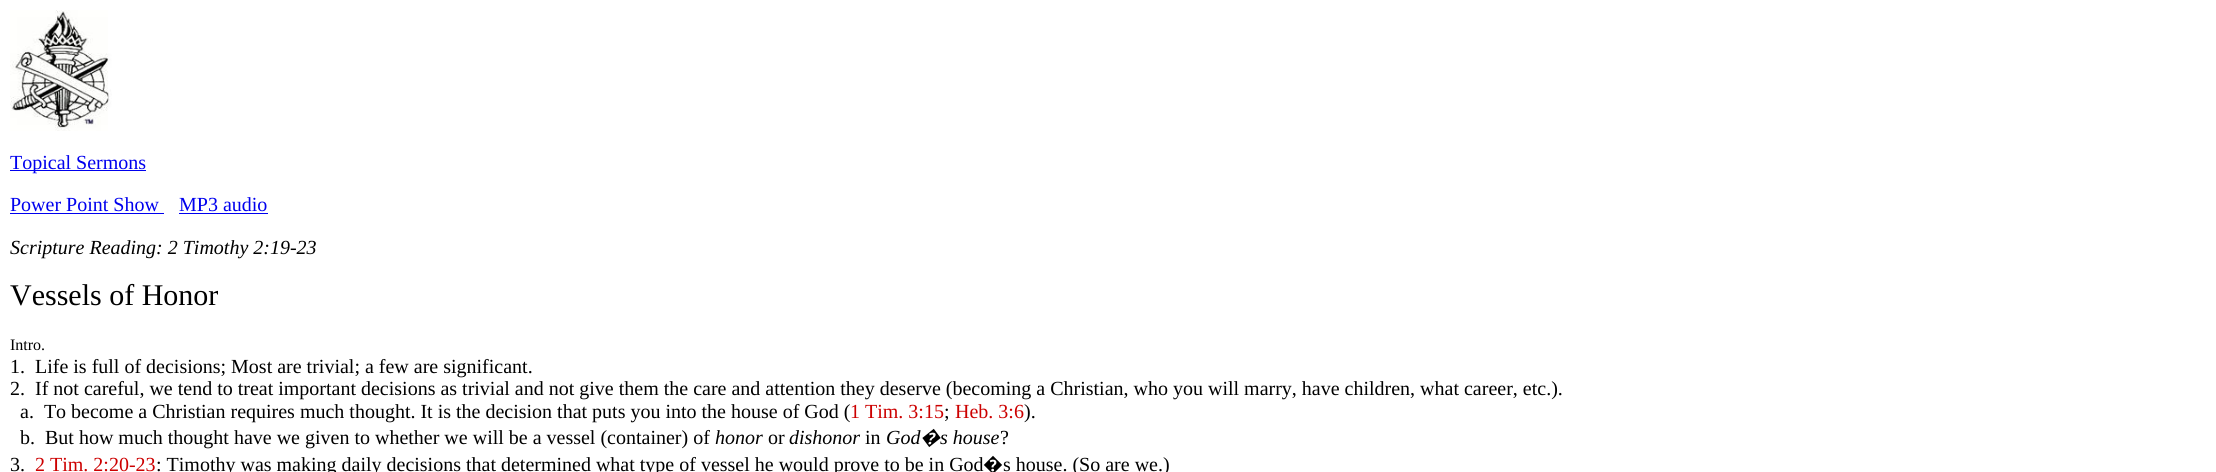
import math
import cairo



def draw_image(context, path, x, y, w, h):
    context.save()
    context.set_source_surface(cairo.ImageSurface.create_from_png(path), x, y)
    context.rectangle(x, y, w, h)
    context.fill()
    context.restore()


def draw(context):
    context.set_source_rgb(1, 1, 1)
    context.paint()
    draw_image(context, "images/1.png", 10, 10, 102, 121)
    context.set_source_rgb(0, 0, 238 / 255)
    context.rectangle(10, 170, 136, 1)
    context.fill()
    context.rectangle(10, 213, 154, 1)
    context.fill()
    context.rectangle(179, 213, 89, 1)
    context.fill()
    context.select_font_face("Liberation Serif")
    context.set_font_size(20)
    context.move_to(10, 169)
    context.show_text("Topical Sermons")
    context.move_to(10, 211)
    context.show_text("Power Point Show")
    context.move_to(179, 211)
    context.show_text("MP3 audio")
    context.select_font_face("Liberation Serif", cairo.FontSlant.ITALIC)
    context.set_source_rgb(0, 0, 0)
    context.move_to(10, 254)
    context.show_text("Scripture Reading: 2 Timothy 2:19-23")
    context.select_font_face("Liberation Serif")
    context.set_font_size(30)
    context.move_to(10, 305)
    context.show_text("Vessels of Honor")
    context.set_font_size(16)
    context.move_to(10, 350)
    context.show_text("Intro.")
    context.set_font_size(20)
    context.move_to(10, 373)
    context.show_text("1.  Life is full of decisions; Most are trivial; a few are significant.")
    context.move_to(10, 395)
    context.show_text("2.  If not careful, we tend to treat important decisions as trivial and not give them the care and attention they deserve (becoming a Christian, who you will marry, have children, what career, etc.).")
    context.move_to(20, 418)
    context.show_text("a.  To become a Christian requires much thought. It is the decision that puts you into the house of God (")
    context.set_source_rgb(204 / 255, 0, 0)
    context.move_to(850, 418)
    context.show_text("1 Tim. 3:15")
    context.set_source_rgb(0, 0, 0)
    context.move_to(944, 418)
    context.show_text(";")
    context.set_source_rgb(204 / 255, 0, 0)
    context.move_to(955, 418)
    context.show_text("Heb. 3:6")
    context.set_source_rgb(0, 0, 0)
    context.move_to(1024, 418)
    context.show_text(").")
    context.move_to(20, 444)
    context.show_text("b.  But how much thought have we given to whether we will be a vessel (container) of")
    context.select_font_face("Liberation Serif", cairo.FontSlant.ITALIC)
    context.move_to(715, 444)
    context.show_text("honor")
    context.select_font_face("Liberation Serif")
    context.move_to(768, 444)
    context.show_text("or")
    context.select_font_face("Liberation Serif", cairo.FontSlant.ITALIC)
    context.move_to(789, 444)
    context.show_text("dishonor")
    context.select_font_face("Liberation Serif")
    context.move_to(865, 444)
    context.show_text("in")
    context.select_font_face("Liberation Serif", cairo.FontSlant.ITALIC)
    context.move_to(886, 444)
    context.show_text("God")
    context.select_font_face("Noto Sans", cairo.FontSlant.ITALIC)
    context.move_to(920, 444)
    context.show_text("�")
    context.select_font_face("Liberation Serif", cairo.FontSlant.ITALIC)
    context.move_to(940, 444)
    context.show_text("s house")
    context.select_font_face("Liberation Serif")
    context.move_to(1000, 444)
    context.show_text("?")
    context.move_to(10, 471)
    context.show_text("3.")
    context.set_source_rgb(204 / 255, 0, 0)
    context.move_to(35, 471)
    context.show_text("2 Tim. 2:20-23")
    context.set_source_rgb(0, 0, 0)
    context.move_to(156, 471)
    context.show_text(": Timothy was making daily decisions that determined what type of vessel he would prove to be in God")
    context.select_font_face("Noto Sans")
    context.move_to(983, 471)
    context.show_text("�")
    context.select_font_face("Liberation Serif")
    context.move_to(1003, 471)
    context.show_text("s house. (So are we.)")


surface = cairo.ImageSurface(cairo.Format.RGB24, 2216, 472)
context = cairo.Context(surface)
options = cairo.FontOptions()
options.set_hint_metrics(cairo.HintMetrics.OFF)
options.set_hint_style(cairo.HintStyle.NONE)
context.set_font_options(options)
context.set_miter_limit(4)
draw(context)
surface.write_to_png("out.png")
